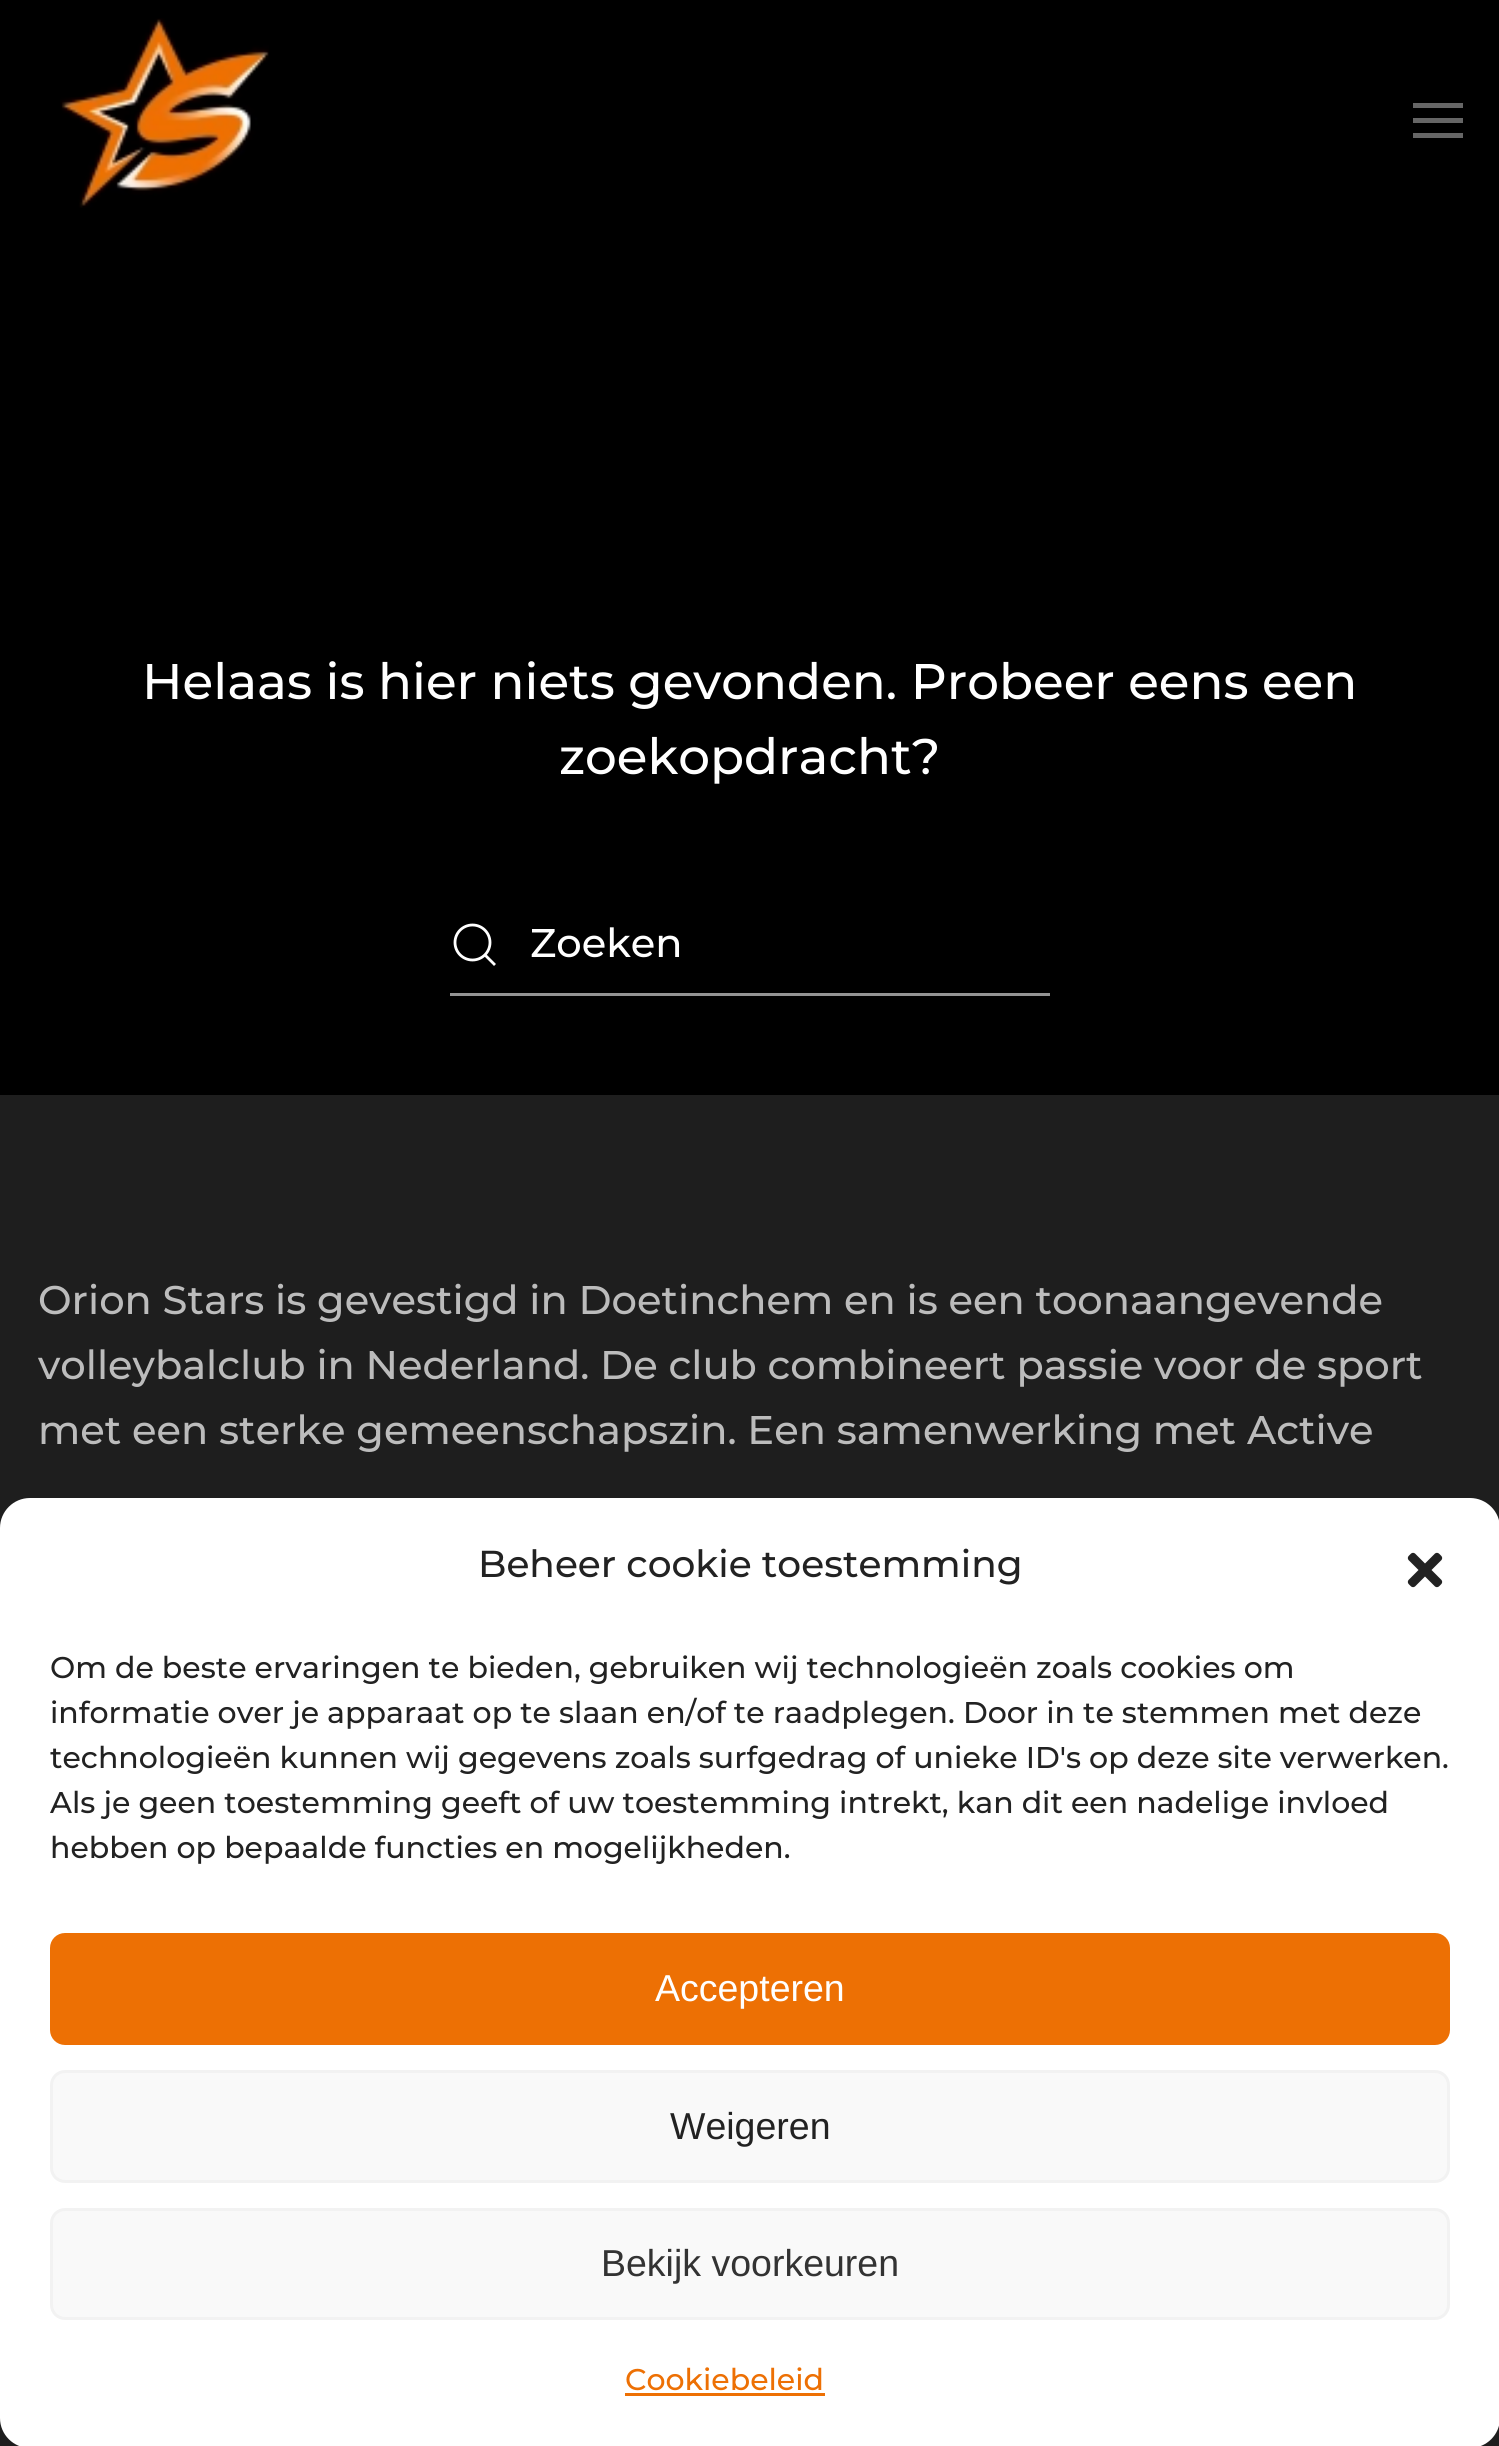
import math
import cairo



def rounded_rect(context, x, y, w, h, r):
    context.new_sub_path()
    for i, (u, v) in enumerate([(x + w - r, y + h - r), (x + r, y + h - r), (x + r, y + r), (x + w - r, y + r)]):
        context.arc(u, v, r, i * math.pi / 2, (i + 1) * math.pi / 2)
    context.close_path()


def draw_image(context, path, x, y, w, h):
    context.save()
    context.set_source_surface(cairo.ImageSurface.create_from_png(path), x, y)
    context.rectangle(x, y, w, h)
    context.fill()
    context.restore()


def draw(context):
    context.set_source_rgb(0, 0, 0)
    context.paint()
    draw_image(context, "images/1.png", 60, 18, 209, 190)
    context.set_source_rgb(102 / 255, 102 / 255, 102 / 255)
    context.rectangle(1413, 103, 50, 5)
    context.fill()
    context.rectangle(1413, 118, 50, 5)
    context.fill()
    context.rectangle(1413, 133, 50, 5)
    context.fill()
    context.arc(472.5, 942.5, 17.5, 0, 2 * math.pi)
    context.set_source_rgb(1, 1, 1)
    context.set_line_width(2.8)
    context.stroke()
    context.new_path()
    context.move_to(485, 955)
    context.line_to(495, 965)
    context.close_path()
    context.stroke()
    context.set_source_rgb(147 / 255, 147 / 255, 147 / 255)
    context.rectangle(450, 993, 600, 3)
    context.fill()
    context.set_source_rgb(30 / 255, 30 / 255, 30 / 255)
    context.rectangle(0, 1095, 1499, 1351)
    context.fill()
    context.set_source_rgb(1, 1, 1)
    rounded_rect(context, 0, 1498, 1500, 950, 30)
    context.fill()
    draw_image(context, "images/2.png", 1407, 1552, 36, 36)
    context.set_source_rgb(237 / 255, 112 / 255, 4 / 255)
    rounded_rect(context, 51.5, 1934.5, 1397, 109, 13.5)
    context.fill_preserve()
    context.set_line_width(3)
    context.stroke()
    context.set_source_rgb(249 / 255, 249 / 255, 249 / 255)
    rounded_rect(context, 51.5, 2071.5, 1397, 110, 13.5)
    context.fill_preserve()
    context.set_source_rgb(242 / 255, 242 / 255, 242 / 255)
    context.stroke()
    context.set_source_rgb(249 / 255, 249 / 255, 249 / 255)
    rounded_rect(context, 51.5, 2209.5, 1397, 109, 13.5)
    context.fill_preserve()
    context.set_source_rgb(242 / 255, 242 / 255, 242 / 255)
    context.stroke()
    context.set_source_rgb(237 / 255, 112 / 255, 4 / 255)
    context.rectangle(625, 2393, 200, 3)
    context.fill()
    context.select_font_face("Montserrat Thin")
    context.set_font_size(50)
    context.set_source_rgb(1, 1, 1)
    context.move_to(142, 699)
    context.show_text("Helaas is hier niets gevonden. Probeer eens een")
    context.move_to(559, 774)
    context.show_text("zoekopdracht?")
    context.set_font_size(40)
    context.move_to(530, 957)
    context.show_text("Zoeken")
    context.set_source_rgb(188 / 255, 188 / 255, 188 / 255)
    context.move_to(38, 1314)
    context.show_text("Orion Stars is gevestigd in Doetinchem en is een toonaangevende")
    context.move_to(38, 1379)
    context.show_text("volleybalclub in Nederland. De club combineert passie voor de sport")
    context.move_to(38, 1444)
    context.show_text("met een sterke gemeenschapszin. Een samenwerking met Active")
    context.set_font_size(37.5)
    context.set_source_rgb(34 / 255, 34 / 255, 34 / 255)
    context.move_to(478, 1577)
    context.show_text("Beheer cookie toestemming")
    context.set_font_size(30)
    context.move_to(50, 1678)
    context.show_text("Om de beste ervaringen te bieden, gebruiken wij technologieën zoals cookies om")
    context.move_to(50, 1723)
    context.show_text("informatie over je apparaat op te slaan en/of te raadplegen. Door in te stemmen met deze")
    context.move_to(50, 1768)
    context.show_text("technologieën kunnen wij gegevens zoals surfgedrag of unieke ID's op deze site verwerken.")
    context.move_to(50, 1813)
    context.show_text("Als je geen toestemming geeft of uw toestemming intrekt, kan dit een nadelige invloed")
    context.move_to(50, 1858)
    context.show_text("hebben op bepaalde functies en mogelijkheden.")
    context.select_font_face("Liberation Sans")
    context.set_font_size(37.5)
    context.set_source_rgb(1, 1, 1)
    context.move_to(655, 2001)
    context.show_text("Accepteren")
    context.set_source_rgb(34 / 255, 34 / 255, 34 / 255)
    context.move_to(670, 2139)
    context.show_text("Weigeren")
    context.set_source_rgb(51 / 255, 51 / 255, 51 / 255)
    context.move_to(601, 2276)
    context.show_text("Bekijk voorkeuren")
    context.select_font_face("Montserrat Thin")
    context.set_font_size(30)
    context.set_source_rgb(237 / 255, 112 / 255, 4 / 255)
    context.move_to(625, 2390)
    context.show_text("Cookiebeleid")


surface = cairo.ImageSurface(cairo.Format.RGB24, 1499, 2446)
context = cairo.Context(surface)
options = cairo.FontOptions()
options.set_hint_metrics(cairo.HintMetrics.OFF)
options.set_hint_style(cairo.HintStyle.NONE)
context.set_font_options(options)
context.set_miter_limit(4)
draw(context)
surface.write_to_png("out.png")
